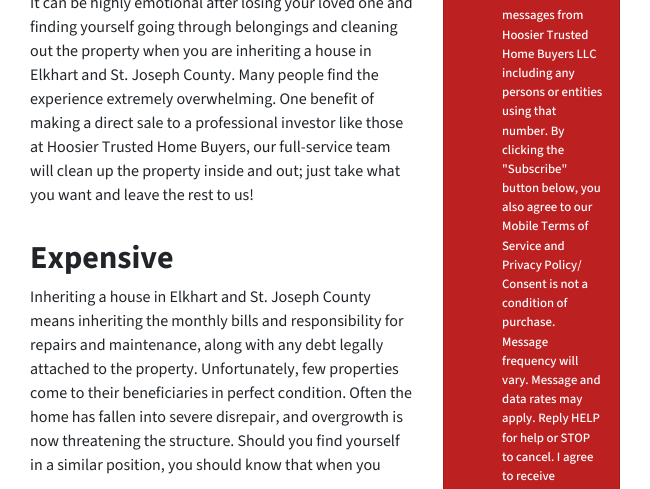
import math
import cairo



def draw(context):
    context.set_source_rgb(1, 1, 1)
    context.paint()
    context.set_source_rgb(189 / 255, 32 / 255, 32 / 255)
    context.rectangle(443.5, -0.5, 176, 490)
    context.fill_preserve()
    context.set_source_rgb(165 / 255, 28 / 255, 28 / 255)
    context.set_line_width(1)
    context.stroke()
    context.select_font_face("Source Sans 3")
    context.set_font_size(16)
    context.set_source_rgb(33 / 255, 37 / 255, 41 / 255)
    context.move_to(30, 8)
    context.show_text("It can be highly emotional after losing your loved one and")
    context.move_to(30, 32)
    context.show_text("finding yourself going through belongings and cleaning")
    context.move_to(30, 56)
    context.show_text("out the property when you are inheriting a house in")
    context.move_to(30, 80)
    context.show_text("Elkhart and St. Joseph County. Many people find the")
    context.move_to(30, 104)
    context.show_text("experience extremely overwhelming. One benefit of")
    context.move_to(30, 128)
    context.show_text("making a direct sale to a professional investor like those")
    context.move_to(30, 152)
    context.show_text("at Hoosier Trusted Home Buyers, our full-service team")
    context.move_to(30, 176)
    context.show_text("will clean up the property inside and out; just take what")
    context.move_to(30, 200)
    context.show_text("you want and leave the rest to us!")
    context.select_font_face("Source Sans 3", cairo.FontSlant.NORMAL, cairo.FontWeight.BOLD)
    context.set_font_size(32)
    context.move_to(30, 268)
    context.show_text("Expensive")
    context.select_font_face("Source Sans 3")
    context.set_font_size(16)
    context.move_to(30, 302)
    context.show_text("Inheriting a house in Elkhart and St. Joseph County")
    context.move_to(30, 326)
    context.show_text("means inheriting the monthly bills and responsibility for")
    context.move_to(30, 350)
    context.show_text("repairs and maintenance, along with any debt legally")
    context.move_to(30, 374)
    context.show_text("attached to the property. Unfortunately, few properties")
    context.move_to(30, 398)
    context.show_text("come to their beneficiaries in perfect condition. Often the")
    context.move_to(30, 422)
    context.show_text("home has fallen into severe disrepair, and overgrowth is")
    context.move_to(30, 446)
    context.show_text("now threatening the structure. Should you find yourself")
    context.move_to(30, 470)
    context.show_text("in a similar position, you should know that when you")
    context.select_font_face("Source Sans 3 Medium")
    context.set_font_size(12.75)
    context.set_source_rgb(1, 1, 1)
    context.move_to(502, 19)
    context.show_text("messages from")
    context.move_to(502, 39)
    context.show_text("Hoosier Trusted")
    context.move_to(502, 58)
    context.show_text("Home Buyers LLC")
    context.move_to(502, 77)
    context.show_text("including any")
    context.move_to(502, 96)
    context.show_text("persons or entities")
    context.move_to(502, 115)
    context.show_text("using that")
    context.move_to(502, 135)
    context.show_text("number. By")
    context.move_to(502, 154)
    context.show_text("clicking the")
    context.move_to(502, 173)
    context.show_text("\"Subscribe\"")
    context.move_to(502, 192)
    context.show_text("button below, you")
    context.move_to(502, 211)
    context.show_text("also agree to our")
    context.move_to(502, 230)
    context.show_text("Mobile Terms of")
    context.move_to(502, 250)
    context.show_text("Service and")
    context.move_to(502, 269)
    context.show_text("Privacy Policy/")
    context.move_to(502, 288)
    context.show_text("Consent is not a")
    context.move_to(502, 307)
    context.show_text("condition of")
    context.move_to(502, 326)
    context.show_text("purchase.")
    context.move_to(502, 346)
    context.show_text("Message")
    context.move_to(502, 365)
    context.show_text("frequency will")
    context.move_to(502, 384)
    context.show_text("vary. Message and")
    context.move_to(502, 403)
    context.show_text("data rates may")
    context.move_to(502, 422)
    context.show_text("apply. Reply HELP")
    context.move_to(502, 442)
    context.show_text("for help or STOP")
    context.move_to(502, 461)
    context.show_text("to cancel. I agree")
    context.move_to(502, 480)
    context.show_text("to receive")


surface = cairo.ImageSurface(cairo.Format.RGB24, 650, 489)
context = cairo.Context(surface)
options = cairo.FontOptions()
options.set_hint_metrics(cairo.HintMetrics.OFF)
options.set_hint_style(cairo.HintStyle.NONE)
context.set_font_options(options)
context.set_miter_limit(4)
draw(context)
surface.write_to_png("out.png")
